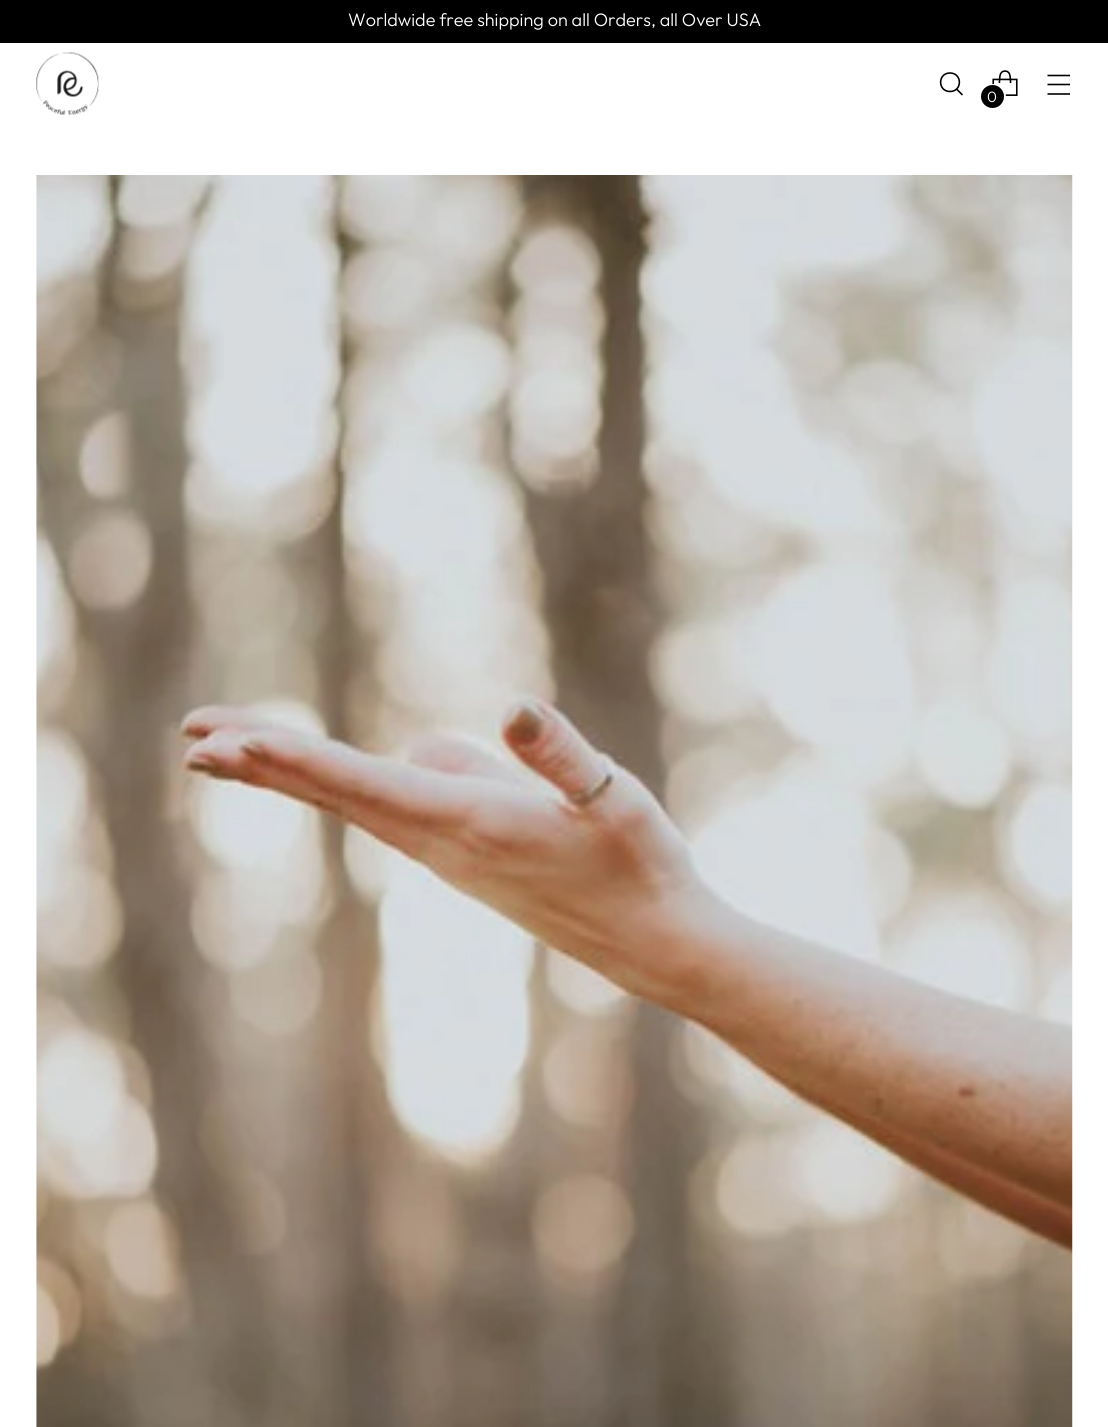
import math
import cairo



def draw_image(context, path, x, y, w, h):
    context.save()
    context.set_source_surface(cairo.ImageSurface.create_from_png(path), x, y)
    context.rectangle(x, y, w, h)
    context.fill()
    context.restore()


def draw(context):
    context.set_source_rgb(1, 1, 1)
    context.paint()
    context.set_source_rgb(0, 0, 0)
    context.rectangle(0, 0, 1108, 43)
    context.fill()
    draw_image(context, "images/1.png", 36, 52, 63, 63)
    context.new_path()
    context.move_to(950, 91.5)
    context.curve_to(962.5, 91.5, 962.5, 73, 950, 73)
    context.curve_to(937.5, 73, 937.5, 91.5, 950, 91.5)
    context.close_path()
    context.set_line_width(1.6)
    context.set_line_cap(cairo.LineCap.ROUND)
    context.stroke()
    context.new_path()
    context.move_to(956.5, 89)
    context.line_to(962.5, 95)
    context.set_line_cap(cairo.LineCap.BUTT)
    context.stroke()
    context.new_path()
    context.move_to(1047.5, 84.5)
    context.line_to(1070, 84.5)
    context.move_to(1047.5, 75.5)
    context.line_to(1070, 75.5)
    context.move_to(1047.5, 94)
    context.line_to(1070, 94)
    context.stroke()
    draw_image(context, "images/2.png", 992, 70, 26, 26)
    context.arc(993, 97, 12, 0, 2 * math.pi)
    context.set_source_rgb(1, 1, 1)
    context.set_line_width(2)
    context.stroke()
    context.set_source_rgb(0, 0, 0)
    context.arc(992.5, 96.5, 11.5, 0, 2 * math.pi)
    context.fill()
    draw_image(context, "images/3.png", 36, 175, 1037, 1252)
    context.select_font_face("Outfit Light")
    context.set_font_size(18.05)
    context.set_source_rgb(1, 1, 1)
    context.move_to(348, 26)
    context.show_text("Worldwide free shipping on all Orders, all Over USA")
    context.set_font_size(15)
    context.move_to(987, 102)
    context.show_text("0")


surface = cairo.ImageSurface(cairo.Format.RGB24, 1108, 1427)
context = cairo.Context(surface)
options = cairo.FontOptions()
options.set_hint_metrics(cairo.HintMetrics.OFF)
options.set_hint_style(cairo.HintStyle.NONE)
context.set_font_options(options)
context.set_miter_limit(4)
draw(context)
surface.write_to_png("out.png")
